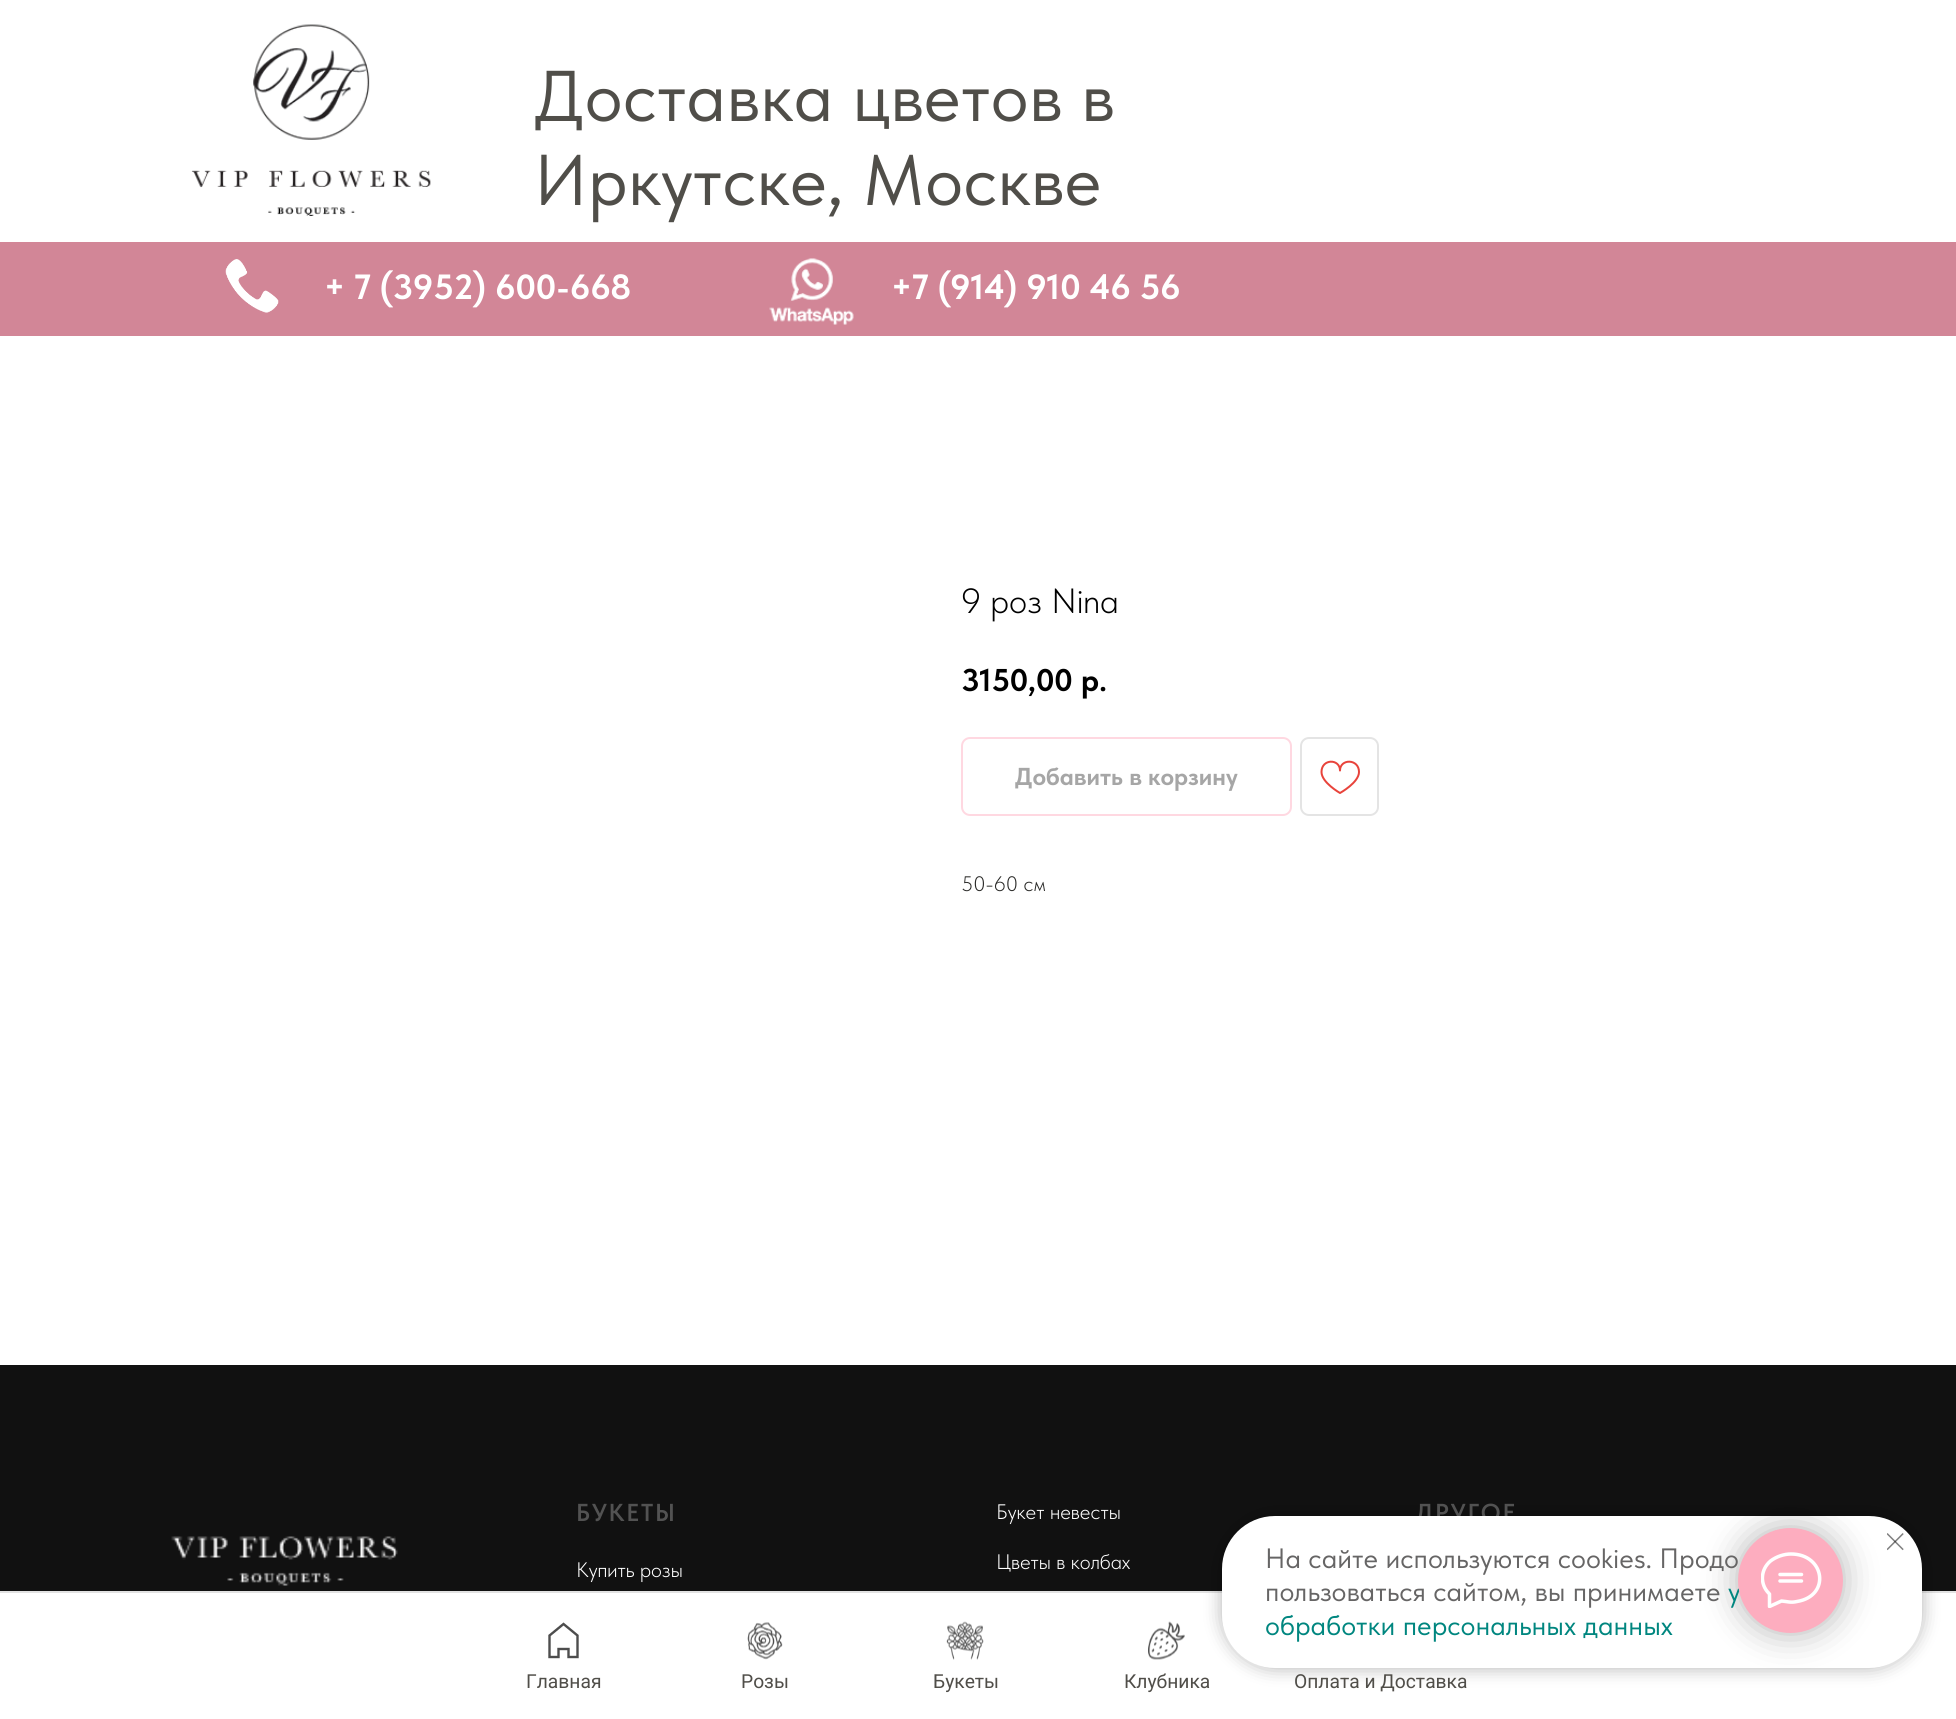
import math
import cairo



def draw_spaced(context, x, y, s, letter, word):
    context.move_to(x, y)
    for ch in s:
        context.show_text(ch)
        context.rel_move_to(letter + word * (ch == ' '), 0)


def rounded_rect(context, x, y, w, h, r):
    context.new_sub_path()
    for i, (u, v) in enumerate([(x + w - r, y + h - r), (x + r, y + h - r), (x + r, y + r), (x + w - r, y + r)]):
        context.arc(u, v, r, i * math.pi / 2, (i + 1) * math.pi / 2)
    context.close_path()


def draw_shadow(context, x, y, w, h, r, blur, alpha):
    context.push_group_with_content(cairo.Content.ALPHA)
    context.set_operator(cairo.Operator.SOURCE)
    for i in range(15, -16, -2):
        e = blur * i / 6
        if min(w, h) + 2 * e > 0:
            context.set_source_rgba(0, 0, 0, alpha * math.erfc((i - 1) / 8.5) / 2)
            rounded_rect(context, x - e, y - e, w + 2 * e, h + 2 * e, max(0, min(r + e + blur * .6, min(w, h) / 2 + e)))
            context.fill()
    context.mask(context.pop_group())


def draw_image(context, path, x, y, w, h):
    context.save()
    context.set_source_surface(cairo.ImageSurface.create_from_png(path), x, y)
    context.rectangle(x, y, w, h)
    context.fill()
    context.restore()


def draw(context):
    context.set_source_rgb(1, 1, 1)
    context.paint()
    draw_image(context, "images/1.png", 191, 24, 240, 192)
    context.set_source_rgb(210 / 255, 134 / 255, 151 / 255)
    context.rectangle(0, 242, 1956, 94)
    context.fill()
    draw_image(context, "images/2.png", 225, 259, 54, 54)
    draw_image(context, "images/3.png", 769, 258, 85, 67)
    context.set_source_rgb(226 / 255, 226 / 255, 226 / 255)
    context.rectangle(0, 1591, 1956, 2)
    context.fill()
    context.new_path()
    context.move_to(577.5, 1657)
    context.line_to(568.5, 1657)
    context.line_to(568.5, 1649)
    context.line_to(558.5, 1649)
    context.line_to(558.5, 1657)
    context.line_to(549.5, 1657)
    context.line_to(549.5, 1635.5)
    context.line_to(563.5, 1624)
    context.line_to(577.5, 1635.5)
    context.close_path()
    context.set_source_rgb(77 / 255, 77 / 255, 77 / 255)
    context.set_line_width(2.4)
    context.stroke()
    draw_image(context, "images/4.png", 747, 1622, 36, 38)
    draw_image(context, "images/5.png", 946, 1621, 38, 39)
    draw_image(context, "images/6.png", 1148, 1621, 37, 39)
    rounded_rect(context, 962, 738, 329, 77, 8)
    context.set_source_rgb(1, 216 / 255, 225 / 255)
    context.set_line_width(2)
    context.stroke()
    rounded_rect(context, 1301, 738, 77, 77, 8)
    context.set_source_rgb(228 / 255, 228 / 255, 228 / 255)
    context.stroke()
    context.new_path()
    context.move_to(1359, 772)
    context.curve_to(1359, 782.5, 1340, 793, 1340, 793)
    context.curve_to(1340, 793, 1321.5, 782.5, 1321.5, 772)
    context.curve_to(1321.5, 758.5, 1340, 758.5, 1340, 770.5)
    context.curve_to(1340, 758.5, 1359, 758.5, 1359, 772)
    context.close_path()
    context.set_source_rgb(232 / 255, 67 / 255, 59 / 255)
    context.set_line_join(cairo.LineJoin.ROUND)
    context.stroke()
    context.set_source_rgb(17 / 255, 17 / 255, 17 / 255)
    context.rectangle(0, 1365, 1956, 226)
    context.fill()
    draw_image(context, "images/7.png", 171, 1536, 227, 50)
    context.set_source_rgb(0, 0, 0)
    draw_shadow(context, 1222, 1516, 700, 152, 53, 9, 0.3)
    context.select_font_face("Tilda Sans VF")
    context.set_font_size(71.75)
    context.set_source_rgb(80 / 255, 78 / 255, 73 / 255)
    context.move_to(534, 121)
    context.show_text("Доставка цветов в")
    context.move_to(534, 205)
    context.show_text("Иркутске, Москве")
    context.select_font_face("Tilda Sans VF", cairo.FontSlant.NORMAL, cairo.FontWeight.BOLD)
    context.set_font_size(35)
    context.set_source_rgb(1, 1, 1)
    context.move_to(324, 299)
    context.show_text("+ 7 (3952) 600-668")
    context.move_to(891, 299)
    context.show_text("+7 (914) 910 46 56")
    context.select_font_face("Roboto")
    context.set_font_size(19.25)
    context.set_source_rgb(80 / 255, 78 / 255, 73 / 255)
    context.move_to(526, 1688)
    context.show_text("Главная")
    context.move_to(741, 1688)
    context.show_text("Розы")
    context.move_to(933, 1688)
    context.show_text("Букеты")
    context.move_to(1124, 1688)
    context.show_text("Клубника")
    context.move_to(1294, 1688)
    context.show_text("Оплата и Доставка")
    context.select_font_face("Tilda Sans VF Light")
    context.set_font_size(35)
    context.set_source_rgb(0, 0, 0)
    context.move_to(961, 613)
    context.show_text("9 роз Nina")
    context.select_font_face("Tilda Sans VF", cairo.FontSlant.NORMAL, cairo.FontWeight.BOLD)
    context.set_font_size(31.5)
    context.move_to(961, 691)
    context.show_text("3150,00")
    context.move_to(1081, 691)
    context.show_text("р.")
    context.set_font_size(24.5)
    context.set_source_rgb(166 / 255, 166 / 255, 166 / 255)
    context.move_to(1015, 785)
    context.show_text("Добавить в корзину")
    context.select_font_face("Tilda Sans VF Light")
    context.set_font_size(21)
    context.set_source_rgb(42 / 255, 42 / 255, 40 / 255)
    context.move_to(961, 891)
    context.show_text("50-60 см")
    context.select_font_face("Tilda Sans VF SemiBold")
    context.set_font_size(24.5)
    context.set_source_rgb(82 / 255, 82 / 255, 82 / 255)
    draw_spaced(context, 576, 1521, "БУКЕТЫ", 1.75, 0)
    context.select_font_face("Tilda Sans VF Light")
    context.set_font_size(21)
    context.set_source_rgb(1, 1, 1)
    context.move_to(576, 1577)
    context.show_text("Купить розы")
    context.move_to(996, 1519)
    context.show_text("Букет невесты")
    context.move_to(996, 1569)
    context.show_text("Цветы в колбах")
    context.select_font_face("Tilda Sans VF SemiBold")
    context.set_font_size(24.5)
    context.set_source_rgb(82 / 255, 82 / 255, 82 / 255)
    draw_spaced(context, 1416, 1521, "ДРУГОЕ", 1.75, 0)
    context.set_source_rgb(1, 1, 1)
    rounded_rect(context, 1222, 1516, 700, 152, 53)
    context.fill()
    draw_image(context, "images/8.png", 1887, 1533, 17, 18)
    context.set_source_rgb(0, 0, 0)
    draw_shadow(context, 1738, 1528, 105, 105, 52.5, 17.5, 0.3)
    context.select_font_face("Tilda Sans VF")
    context.set_font_size(28)
    context.set_source_rgb(102 / 255, 101 / 255, 101 / 255)
    context.move_to(1265, 1568)
    context.show_text("На сайте используются cookies. Продо")
    context.move_to(1265, 1601)
    context.show_text("пользоваться сайтом, вы принимаете")
    context.set_source_rgb(0, 134 / 255, 127 / 255)
    context.move_to(1728, 1601)
    context.show_text("у")
    context.set_source_rgb(253 / 255, 173 / 255, 191 / 255)
    context.new_path()
    context.arc(1790.5, 1580.5, 52.5, 0, 2 * math.pi)
    context.fill()
    context.save()
    context.rectangle(1761, 1552, 61, 56)
    context.clip()
    context.new_path()
    context.move_to(1780, 1574.5)
    context.line_to(1801.5, 1574.5)
    context.move_to(1780, 1581)
    context.line_to(1801.5, 1581)
    context.move_to(1769, 1593.5)
    context.curve_to(1759.5, 1584, 1760.5, 1569.5, 1770.5, 1561)
    context.curve_to(1776.5, 1556.5, 1784, 1554, 1791, 1554)
    context.curve_to(1825, 1554, 1831, 1596, 1797, 1601.5)
    context.curve_to(1790.5, 1603, 1787.5, 1601.5, 1781.5, 1601)
    context.line_to(1769.5, 1606.5)
    context.line_to(1769.5, 1594)
    context.close_path()
    context.set_source_rgb(1, 1, 1)
    context.set_line_width(3.5)
    context.set_line_cap(cairo.LineCap.ROUND)
    context.stroke()
    context.restore()
    context.set_source_rgb(0, 134 / 255, 127 / 255)
    context.move_to(1265, 1635)
    context.show_text("обработки персональных данных")


surface = cairo.ImageSurface(cairo.Format.RGB24, 1956, 1719)
context = cairo.Context(surface)
options = cairo.FontOptions()
options.set_hint_metrics(cairo.HintMetrics.OFF)
options.set_hint_style(cairo.HintStyle.NONE)
context.set_font_options(options)
context.set_miter_limit(4)
draw(context)
surface.write_to_png("out.png")
